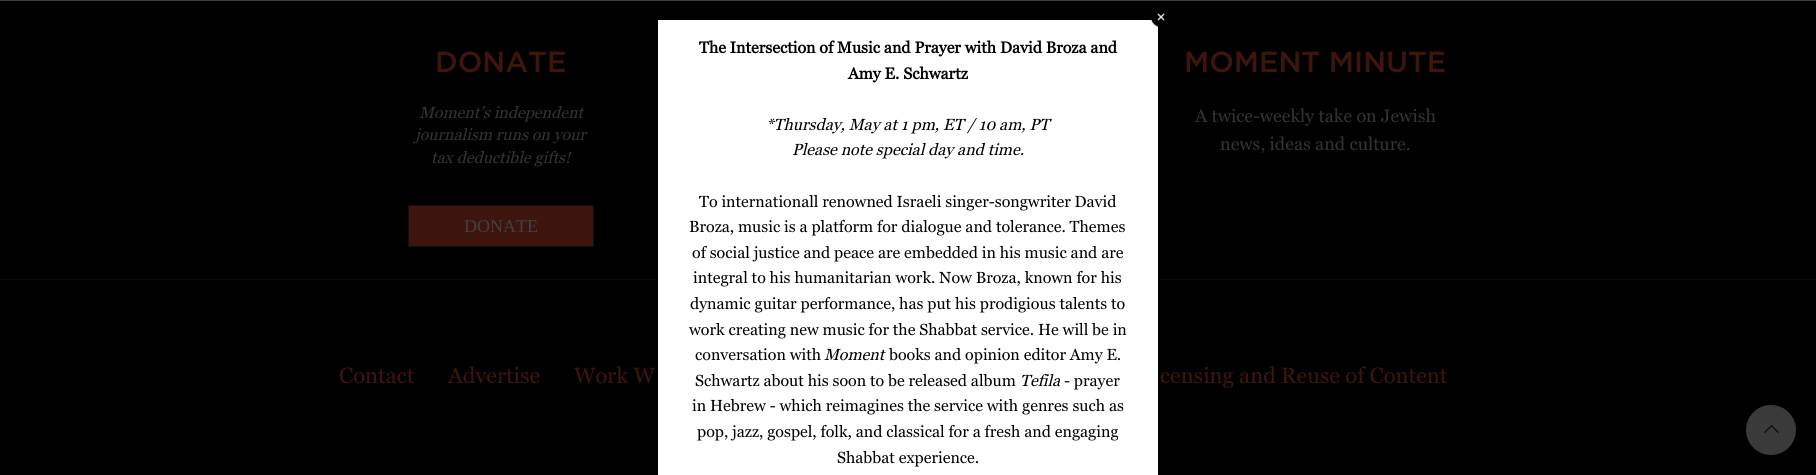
import math
import cairo



def rounded_rect(context, x, y, w, h, r):
    context.new_sub_path()
    for i, (u, v) in enumerate([(x + w - r, y + h - r), (x + r, y + h - r), (x + r, y + r), (x + w - r, y + r)]):
        context.arc(u, v, r, i * math.pi / 2, (i + 1) * math.pi / 2)
    context.close_path()


def draw_shadow(context, x, y, w, h, r, blur, alpha):
    context.push_group_with_content(cairo.Content.ALPHA)
    context.set_operator(cairo.Operator.SOURCE)
    for i in range(15, -16, -2):
        e = blur * i / 6
        if min(w, h) + 2 * e > 0:
            context.set_source_rgba(0, 0, 0, alpha * math.erfc((i - 1) / 8.5) / 2)
            rounded_rect(context, x - e, y - e, w + 2 * e, h + 2 * e, max(0, min(r + e + blur * .6, min(w, h) / 2 + e)))
            context.fill()
    context.mask(context.pop_group())


def draw_image(context, path, x, y, w, h):
    context.save()
    context.set_source_surface(cairo.ImageSurface.create_from_png(path), x, y)
    context.rectangle(x, y, w, h)
    context.fill()
    context.restore()


def draw(context):
    context.set_source_rgb(64 / 255, 64 / 255, 64 / 255)
    context.paint()
    context.set_source_rgb(0, 0, 0)
    context.rectangle(0, 1, 1816, 474)
    context.fill()
    context.set_source_rgb(10 / 255, 10 / 255, 10 / 255)
    context.rectangle(0, 279, 1816, 1)
    context.fill()
    context.set_source_rgb(0, 0, 0)
    draw_shadow(context, 658, 20, 500, 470, 0, 5, 1)
    context.set_source_rgb(1, 1, 1)
    context.rectangle(658, 20, 500, 455)
    context.fill()
    draw_image(context, "images/1.png", 1151, 13, 14, 14)
    context.set_source_rgb(62 / 255, 21 / 255, 13 / 255)
    context.rectangle(408.5, 205.5, 185, 41)
    context.fill_preserve()
    context.set_source_rgb(15 / 255, 15 / 255, 15 / 255)
    context.set_line_width(1)
    context.stroke()
    context.set_source_rgb(58 / 255, 58 / 255, 58 / 255)
    context.arc(1771, 430, 25, 0, 2 * math.pi)
    context.fill()
    draw_image(context, "images/2.png", 1764, 424, 15, 9)
    context.select_font_face("Georgia", cairo.FontSlant.NORMAL, cairo.FontWeight.BOLD)
    context.set_font_size(16)
    context.set_source_rgb(0, 0, 0)
    context.move_to(699, 53)
    context.show_text("The Intersection of Music and Prayer with David Broza and")
    context.move_to(848, 79)
    context.show_text("Amy E. Schwartz")
    context.select_font_face("Georgia", cairo.FontSlant.ITALIC)
    context.move_to(766, 130)
    context.show_text("*Thursday, May at 1 pm, ET / 10 am, PT")
    context.move_to(792, 155)
    context.show_text("Please note special day and time.")
    context.select_font_face("Georgia")
    context.move_to(699, 207)
    context.show_text("To internationall renowned Israeli singer-songwriter David")
    context.move_to(689, 232)
    context.show_text("Broza, music is a platform for dialogue and tolerance. Themes")
    context.move_to(692, 258)
    context.show_text("of social justice and peace are embedded in his music and are")
    context.move_to(693, 283)
    context.show_text("integral to his humanitarian work. Now Broza, known for his")
    context.move_to(690, 309)
    context.show_text("dynamic guitar performance, has put his prodigious talents to")
    context.move_to(689, 335)
    context.show_text("work creating new music for the Shabbat service. He will be in")
    context.move_to(695, 360)
    context.show_text("conversation with")
    context.select_font_face("Georgia", cairo.FontSlant.ITALIC)
    context.move_to(824, 360)
    context.show_text("Moment")
    context.select_font_face("Georgia")
    context.move_to(889, 360)
    context.show_text("books and opinion editor Amy E.")
    context.move_to(695, 386)
    context.show_text("Schwartz about his soon to be released album")
    context.select_font_face("Georgia", cairo.FontSlant.ITALIC)
    context.move_to(1020, 386)
    context.show_text("Tefila")
    context.select_font_face("Georgia")
    context.move_to(1064, 386)
    context.show_text("- prayer")
    context.move_to(692, 411)
    context.show_text("in Hebrew - which reimagines the service with genres such as")
    context.move_to(697, 437)
    context.show_text("pop, jazz, gospel, folk, and classical for a fresh and engaging")
    context.move_to(837, 463)
    context.show_text("Shabbat experience.")
    context.select_font_face("Gotham Medium")
    context.set_font_size(29)
    context.set_source_rgb(62 / 255, 21 / 255, 13 / 255)
    context.move_to(435, 72)
    context.show_text("DONATE")
    context.select_font_face("Georgia", cairo.FontSlant.ITALIC)
    context.set_font_size(16)
    context.set_source_rgb(51 / 255, 51 / 255, 51 / 255)
    context.move_to(419, 118)
    context.show_text("Moment’s independent")
    context.move_to(415, 140)
    context.show_text("journalism runs on your")
    context.move_to(431, 163)
    context.show_text("tax deductible gifts!")
    context.select_font_face("Liberation Serif")
    context.set_font_size(18)
    context.set_source_rgb(64 / 255, 64 / 255, 64 / 255)
    context.move_to(464, 232)
    context.show_text("DONATE")
    context.select_font_face("Gotham Medium")
    context.set_font_size(29)
    context.set_source_rgb(62 / 255, 21 / 255, 13 / 255)
    context.move_to(1184, 72)
    context.show_text("MOMENT MINUTE")
    context.select_font_face("Georgia")
    context.set_font_size(18)
    context.set_source_rgb(51 / 255, 51 / 255, 51 / 255)
    context.move_to(1195, 122)
    context.show_text("A twice-weekly take on Jewish")
    context.move_to(1220, 150)
    context.show_text("news, ideas and culture.")
    context.set_font_size(22)
    context.set_source_rgb(62 / 255, 21 / 255, 13 / 255)
    context.move_to(339, 383)
    context.show_text("Contact")
    context.move_to(448, 383)
    context.show_text("Advertise")
    context.move_to(574, 383)
    context.show_text("Work W")
    context.move_to(1160, 383)
    context.show_text("censing and Reuse of Content")


surface = cairo.ImageSurface(cairo.Format.RGB24, 1816, 475)
context = cairo.Context(surface)
options = cairo.FontOptions()
options.set_hint_metrics(cairo.HintMetrics.OFF)
options.set_hint_style(cairo.HintStyle.NONE)
context.set_font_options(options)
context.set_miter_limit(4)
draw(context)
surface.write_to_png("out.png")
